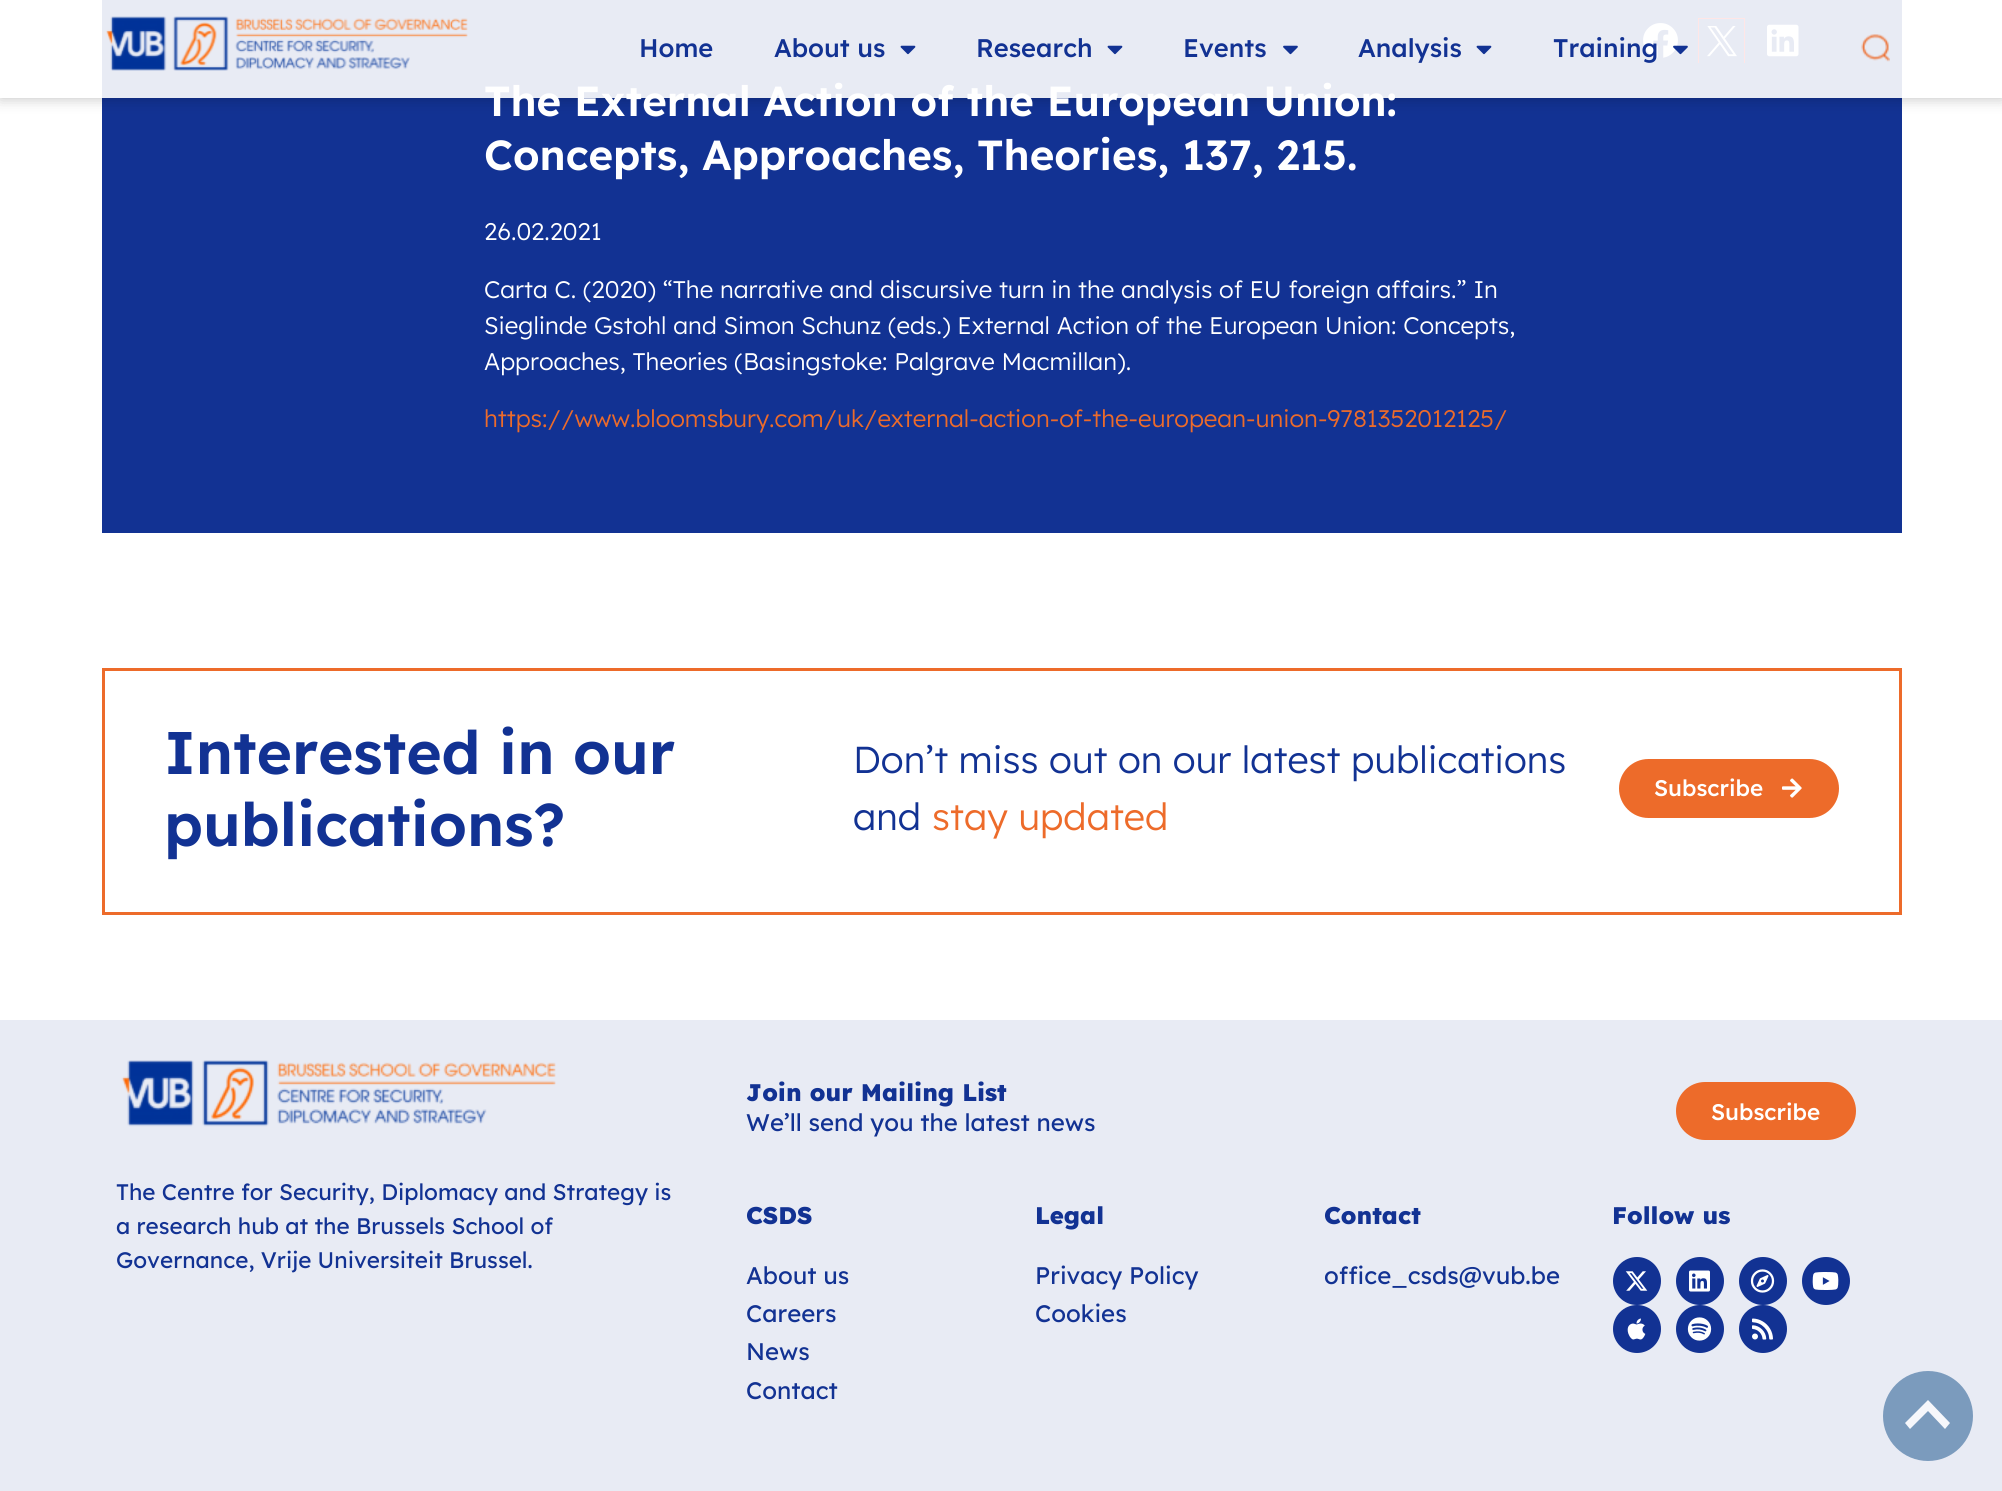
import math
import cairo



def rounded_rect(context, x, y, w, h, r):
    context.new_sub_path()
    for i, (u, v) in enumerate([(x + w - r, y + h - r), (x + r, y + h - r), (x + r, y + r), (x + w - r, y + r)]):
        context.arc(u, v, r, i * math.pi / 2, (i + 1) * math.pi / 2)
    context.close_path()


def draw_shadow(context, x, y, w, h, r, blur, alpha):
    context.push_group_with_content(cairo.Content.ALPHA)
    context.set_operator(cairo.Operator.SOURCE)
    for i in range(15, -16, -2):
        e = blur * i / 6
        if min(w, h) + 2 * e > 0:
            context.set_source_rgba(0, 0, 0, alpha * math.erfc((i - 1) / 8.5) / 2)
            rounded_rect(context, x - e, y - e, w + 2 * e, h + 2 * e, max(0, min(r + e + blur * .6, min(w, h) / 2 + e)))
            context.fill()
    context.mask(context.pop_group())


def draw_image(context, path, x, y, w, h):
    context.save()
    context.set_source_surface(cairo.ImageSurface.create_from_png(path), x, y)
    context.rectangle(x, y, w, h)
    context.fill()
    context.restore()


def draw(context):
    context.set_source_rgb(1, 1, 1)
    context.paint()
    context.set_source_rgb(18 / 255, 50 / 255, 147 / 255)
    context.rectangle(102, 0, 1800, 533)
    context.fill()
    draw_image(context, "images/8.png", 1643, 23, 35, 35)
    draw_image(context, "images/9.png", 1707, 26, 30, 31)
    context.save()
    context.rectangle(1698, 18, 47, 45)
    context.clip()
    context.rectangle(1698, 18, 47, 46)
    context.set_source_rgb(1, 0, 0)
    context.stroke()
    context.restore()
    draw_image(context, "images/10.png", 1767, 24, 32, 33)
    context.save()
    context.set_fill_rule(cairo.FillRule.EVEN_ODD)
    context.new_path()
    context.move_to(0, 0)
    context.line_to(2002, 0)
    context.line_to(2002, 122)
    context.line_to(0, 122)
    context.close_path()
    context.move_to(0, 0)
    context.line_to(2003, 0)
    context.line_to(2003, 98)
    context.line_to(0, 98)
    context.close_path()
    context.clip()
    context.set_source_rgb(0, 0, 0)
    draw_shadow(context, 0, 0, 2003, 98, 0, 7.5, 0.25)
    context.restore()
    context.rectangle(103.5, 669.5, 1797, 244)
    context.set_source_rgb(237 / 255, 107 / 255, 42 / 255)
    context.set_line_width(3)
    context.stroke()
    rounded_rect(context, 1619, 759, 220, 59, 29.5)
    context.fill()
    draw_image(context, "images/11.png", 1782, 778, 20, 20)
    context.set_source_rgb(232 / 255, 235 / 255, 244 / 255)
    context.rectangle(0, 1020, 2002, 471)
    context.fill()
    draw_image(context, "images/12.png", 121, 1060, 435, 67)
    context.set_source_rgb(237 / 255, 107 / 255, 42 / 255)
    rounded_rect(context, 1676, 1082, 180, 58, 29)
    context.fill()
    context.set_source_rgb(18 / 255, 50 / 255, 147 / 255)
    context.arc(1637, 1281, 24, 0, 2 * math.pi)
    context.fill()
    draw_image(context, "images/13.png", 1625, 1271, 23, 20)
    context.arc(1700, 1281, 24, 0, 2 * math.pi)
    context.fill()
    draw_image(context, "images/14.png", 1689, 1270, 21, 22)
    context.arc(1763, 1281, 24, 0, 2 * math.pi)
    context.fill()
    draw_image(context, "images/15.png", 1750, 1269, 25, 24)
    context.arc(1826, 1281, 24, 0, 2 * math.pi)
    context.fill()
    draw_image(context, "images/16.png", 1812, 1272, 27, 18)
    context.arc(1637, 1329, 24, 0, 2 * math.pi)
    context.fill()
    draw_image(context, "images/17.png", 1627, 1318, 19, 22)
    context.arc(1700, 1329, 24, 0, 2 * math.pi)
    context.fill()
    draw_image(context, "images/18.png", 1687, 1317, 25, 24)
    context.arc(1763, 1329, 24, 0, 2 * math.pi)
    context.fill()
    draw_image(context, "images/19.png", 1752, 1318, 21, 22)
    context.set_source_rgb(123 / 255, 155 / 255, 189 / 255)
    context.arc(1928, 1416, 45, 0, 2 * math.pi)
    context.fill()
    context.set_source_rgb(246 / 255, 247 / 255, 251 / 255)
    context.new_path()
    context.move_to(1905, 1423)
    context.line_to(1910, 1429)
    context.line_to(1928, 1411)
    context.line_to(1945, 1429)
    context.line_to(1950, 1423)
    context.line_to(1928, 1400)
    context.close_path()
    context.fill()
    context.select_font_face("Lexend Deca SemiBold")
    context.set_font_size(42)
    context.set_source_rgb(1, 1, 1)
    context.move_to(484, 116)
    context.show_text("The External Action of the European Union:")
    context.set_source_rgba(1, 1, 1, 0.9)
    context.rectangle(0, 0, 2002, 98)
    context.fill()
    draw_image(context, "images/6.png", 1673, 45, 15, 10)
    context.select_font_face("Lexend Deca Medium")
    context.set_font_size(25.5)
    context.set_source_rgb(18 / 255, 50 / 255, 147 / 255)
    context.move_to(1553, 57)
    context.show_text("Training")
    draw_image(context, "images/5.png", 1476, 45, 16, 10)
    context.move_to(1358, 57)
    context.show_text("Analysis")
    draw_image(context, "images/4.png", 1283, 45, 15, 10)
    context.move_to(1183, 57)
    context.show_text("Events")
    draw_image(context, "images/3.png", 1107, 45, 16, 10)
    context.move_to(976, 57)
    context.show_text("Research")
    draw_image(context, "images/2.png", 900, 45, 16, 10)
    context.move_to(774, 57)
    context.show_text("About us")
    context.move_to(639, 57)
    context.show_text("Home")
    draw_image(context, "images/7.png", 1861, 34, 29, 28)
    draw_image(context, "images/1.png", 106, 16, 362, 55)
    context.select_font_face("Lexend Deca SemiBold")
    context.set_font_size(42)
    context.set_source_rgb(1, 1, 1)
    context.move_to(484, 170)
    context.show_text("Concepts, Approaches, Theories, 137, 215.")
    context.select_font_face("Lexend Deca Light")
    context.set_font_size(24)
    context.move_to(484, 240)
    context.show_text("26.02.2021")
    context.move_to(484, 298)
    context.show_text("Carta C. (2020) “The narrative and discursive turn in the analysis of EU foreign affairs.” In")
    context.move_to(484, 334)
    context.show_text("Sieglinde Gstohl and Simon Schunz (eds.) External Action of the European Union: Concepts,")
    context.move_to(484, 370)
    context.show_text("Approaches, Theories (Basingstoke: Palgrave Macmillan).")
    context.set_source_rgb(237 / 255, 107 / 255, 42 / 255)
    context.move_to(484, 427)
    context.show_text("https://www.bloomsbury.com/uk/external-action-of-the-european-union-9781352012125/")
    context.select_font_face("Lexend Deca SemiBold")
    context.set_font_size(60)
    context.set_source_rgb(18 / 255, 50 / 255, 147 / 255)
    context.move_to(164, 774)
    context.show_text("Interested in our")
    context.move_to(164, 846)
    context.show_text("publications?")
    context.select_font_face("Lexend Deca Light")
    context.set_font_size(37.5)
    context.move_to(853, 773)
    context.show_text("Don’t miss out on our latest publications")
    context.move_to(853, 830)
    context.show_text("and")
    context.set_source_rgb(237 / 255, 107 / 255, 42 / 255)
    context.move_to(932, 830)
    context.show_text("stay updated")
    context.select_font_face("Lexend Deca Medium")
    context.set_font_size(22.5)
    context.set_source_rgb(1, 1, 1)
    context.move_to(1654, 796)
    context.show_text("Subscribe")
    context.select_font_face("Lexend Deca")
    context.set_source_rgb(18 / 255, 50 / 255, 147 / 255)
    context.move_to(116, 1200)
    context.show_text("The Centre for Security, Diplomacy and Strategy is")
    context.move_to(116, 1234)
    context.show_text("a research hub at the Brussels School of")
    context.move_to(116, 1268)
    context.show_text("Governance, Vrije Universiteit Brussel.")
    context.select_font_face("Lexend Deca ExtraBold")
    context.set_font_size(24)
    context.move_to(746, 1101)
    context.show_text("Join our Mailing List")
    context.select_font_face("Lexend Deca")
    context.move_to(746, 1131)
    context.show_text("We’ll send you the latest news")
    context.select_font_face("Lexend Deca Medium")
    context.set_font_size(22.5)
    context.set_source_rgb(1, 1, 1)
    context.move_to(1711, 1120)
    context.show_text("Subscribe")
    context.select_font_face("Lexend Deca ExtraBold")
    context.set_font_size(24)
    context.set_source_rgb(18 / 255, 50 / 255, 147 / 255)
    context.move_to(746, 1224)
    context.show_text("CSDS")
    context.select_font_face("Lexend Deca")
    context.move_to(746, 1284)
    context.show_text("About us")
    context.move_to(746, 1322)
    context.show_text("Careers")
    context.move_to(746, 1360)
    context.show_text("News")
    context.move_to(746, 1399)
    context.show_text("Contact")
    context.select_font_face("Lexend Deca ExtraBold")
    context.move_to(1035, 1224)
    context.show_text("Legal")
    context.select_font_face("Lexend Deca")
    context.move_to(1035, 1284)
    context.show_text("Privacy Policy")
    context.move_to(1035, 1322)
    context.show_text("Cookies")
    context.select_font_face("Lexend Deca ExtraBold")
    context.move_to(1324, 1224)
    context.show_text("Contact")
    context.select_font_face("Lexend Deca")
    context.move_to(1324, 1284)
    context.show_text("office_csds@vub.be")
    context.select_font_face("Lexend Deca ExtraBold")
    context.move_to(1612, 1224)
    context.show_text("Follow us")


surface = cairo.ImageSurface(cairo.Format.RGB24, 2002, 1491)
context = cairo.Context(surface)
options = cairo.FontOptions()
options.set_hint_metrics(cairo.HintMetrics.OFF)
options.set_hint_style(cairo.HintStyle.NONE)
context.set_font_options(options)
context.set_miter_limit(4)
draw(context)
surface.write_to_png("out.png")
